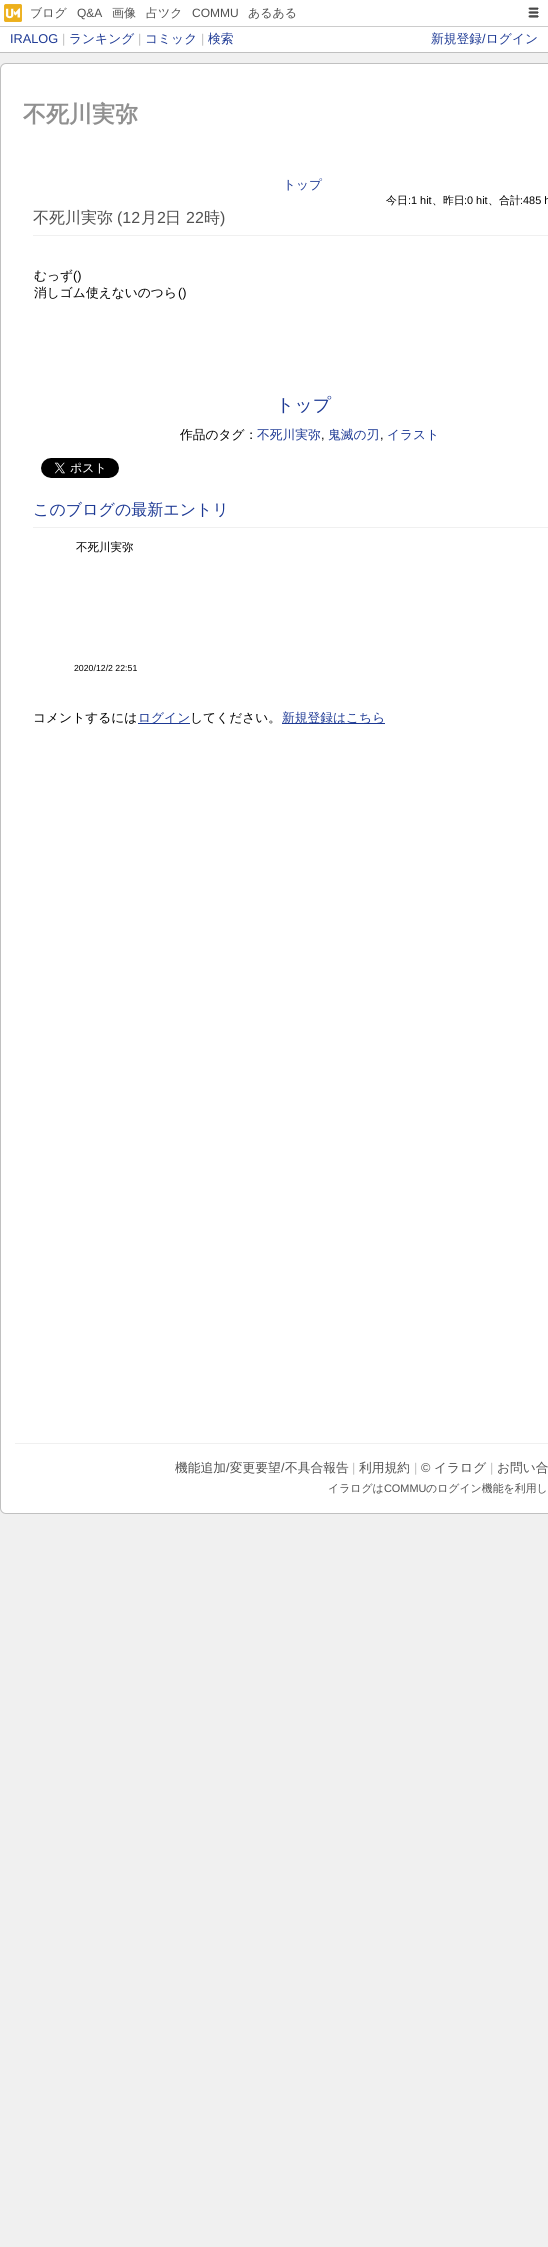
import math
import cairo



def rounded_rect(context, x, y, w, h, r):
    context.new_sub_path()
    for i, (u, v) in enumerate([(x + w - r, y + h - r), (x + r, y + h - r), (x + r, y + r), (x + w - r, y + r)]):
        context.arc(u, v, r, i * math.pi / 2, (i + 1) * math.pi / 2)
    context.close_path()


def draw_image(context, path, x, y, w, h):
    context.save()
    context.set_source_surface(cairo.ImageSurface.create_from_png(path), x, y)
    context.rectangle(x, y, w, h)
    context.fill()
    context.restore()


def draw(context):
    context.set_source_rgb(240 / 255, 240 / 255, 240 / 255)
    context.paint()
    context.set_source_rgb(1, 1, 1)
    context.rectangle(0, 0, 548, 26)
    context.fill()
    context.set_source_rgb(204 / 255, 204 / 255, 204 / 255)
    context.rectangle(0, 26, 548, 1)
    context.fill()
    draw_image(context, "images/1.png", 4, 4, 18, 18)
    draw_image(context, "images/2.png", 528, 7, 11, 11)
    context.set_source_rgb(1, 1, 1)
    context.rectangle(0, 27, 548, 25)
    context.fill()
    context.set_source_rgb(192 / 255, 192 / 255, 192 / 255)
    context.rectangle(0, 52, 548, 1)
    context.fill()
    context.set_source_rgb(1, 1, 1)
    rounded_rect(context, 0.5, 63.5, 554, 1450, 5.5)
    context.fill_preserve()
    context.set_source_rgb(192 / 255, 192 / 255, 192 / 255)
    context.set_line_width(1)
    context.stroke()
    context.set_source_rgb(240 / 255, 240 / 255, 240 / 255)
    context.rectangle(33, 235, 515, 1)
    context.fill()
    draw_image(context, "images/3.png", 41, 458, 78, 20)
    context.rectangle(33, 527, 515, 1)
    context.fill()
    context.set_source_rgb(29 / 255, 57 / 255, 148 / 255)
    context.rectangle(138, 723, 52, 1)
    context.fill()
    context.rectangle(282, 723, 103, 1)
    context.fill()
    context.set_source_rgb(240 / 255, 240 / 255, 240 / 255)
    context.rectangle(15, 1443, 533, 1)
    context.fill()
    context.select_font_face("WenQuanYi Zen Hei Medium")
    context.set_font_size(12)
    context.set_source_rgb(80 / 255, 80 / 255, 80 / 255)
    context.move_to(30, 17)
    context.show_text("ブログ")
    context.select_font_face("Liberation Sans")
    context.move_to(77, 17)
    context.show_text("Q&A")
    context.select_font_face("WenQuanYi Zen Hei Medium")
    context.move_to(112, 17)
    context.show_text("画像")
    context.move_to(146, 17)
    context.show_text("占ツク")
    context.select_font_face("Liberation Sans")
    context.move_to(192, 17)
    context.show_text("COMMU")
    context.select_font_face("WenQuanYi Zen Hei Medium")
    context.move_to(248, 17)
    context.show_text("あるある")
    context.select_font_face("Liberation Sans")
    context.set_font_size(12.75)
    context.set_source_rgb(29 / 255, 57 / 255, 148 / 255)
    context.move_to(10, 43)
    context.show_text("IRALOG")
    context.set_source_rgb(192 / 255, 192 / 255, 192 / 255)
    context.move_to(62, 43)
    context.show_text("|")
    context.select_font_face("WenQuanYi Zen Hei Medium")
    context.set_source_rgb(29 / 255, 57 / 255, 148 / 255)
    context.move_to(69, 43)
    context.show_text("ランキング")
    context.select_font_face("Liberation Sans")
    context.set_source_rgb(192 / 255, 192 / 255, 192 / 255)
    context.move_to(138, 43)
    context.show_text("|")
    context.select_font_face("WenQuanYi Zen Hei Medium")
    context.set_source_rgb(29 / 255, 57 / 255, 148 / 255)
    context.move_to(145, 43)
    context.show_text("コミック")
    context.select_font_face("Liberation Sans")
    context.set_source_rgb(192 / 255, 192 / 255, 192 / 255)
    context.move_to(201, 43)
    context.show_text("|")
    context.select_font_face("WenQuanYi Zen Hei Medium")
    context.set_source_rgb(29 / 255, 57 / 255, 148 / 255)
    context.move_to(208, 43)
    context.show_text("検索")
    context.move_to(431, 43)
    context.show_text("新規登録 ログイン")
    context.select_font_face("Liberation Sans")
    context.move_to(482, 43)
    context.show_text("/")
    context.select_font_face("WenQuanYi Zen Hei", cairo.FontSlant.NORMAL, cairo.FontWeight.BOLD)
    context.set_font_size(23)
    context.set_source_rgb(144 / 255, 144 / 255, 144 / 255)
    context.move_to(23, 122)
    context.show_text("不死川実弥")
    context.select_font_face("WenQuanYi Zen Hei Medium")
    context.set_font_size(12.75)
    context.set_source_rgb(29 / 255, 57 / 255, 148 / 255)
    context.move_to(283, 189)
    context.show_text("トップ")
    context.set_font_size(10.9)
    context.set_source_rgb(0, 0, 0)
    context.move_to(386, 204)
    context.show_text("今日")
    context.select_font_face("Liberation Sans")
    context.move_to(408, 204)
    context.show_text(":1 hit")
    context.select_font_face("WenQuanYi Zen Hei Medium")
    context.move_to(432, 204)
    context.show_text("、昨日")
    context.select_font_face("Liberation Sans")
    context.move_to(464, 204)
    context.show_text(":0 hit")
    context.select_font_face("WenQuanYi Zen Hei Medium")
    context.move_to(488, 204)
    context.show_text("、合計")
    context.select_font_face("Liberation Sans")
    context.move_to(520, 204)
    context.show_text(":485 h")
    context.select_font_face("WenQuanYi Zen Hei Medium")
    context.set_font_size(16)
    context.set_source_rgb(80 / 255, 80 / 255, 80 / 255)
    context.move_to(33, 223)
    context.show_text("不死川実弥")
    context.select_font_face("Liberation Sans")
    context.move_to(117, 223)
    context.show_text("(12")
    context.select_font_face("WenQuanYi Zen Hei Medium")
    context.move_to(141, 223)
    context.show_text("月")
    context.select_font_face("Liberation Sans")
    context.move_to(157, 223)
    context.show_text("2")
    context.select_font_face("WenQuanYi Zen Hei Medium")
    context.move_to(165, 223)
    context.show_text("日")
    context.select_font_face("Liberation Sans")
    context.move_to(186, 223)
    context.show_text("22")
    context.select_font_face("WenQuanYi Zen Hei Medium")
    context.move_to(204, 223)
    context.show_text("時")
    context.select_font_face("Liberation Sans")
    context.move_to(220, 223)
    context.show_text(")")
    context.select_font_face("WenQuanYi Zen Hei Medium")
    context.set_font_size(12.75)
    context.set_source_rgb(0, 0, 0)
    context.move_to(34, 280)
    context.show_text("むっず")
    context.select_font_face("Liberation Sans")
    context.move_to(73, 280)
    context.show_text("()")
    context.select_font_face("WenQuanYi Zen Hei Medium")
    context.move_to(34, 297)
    context.show_text("消しゴム使えないのつら")
    context.select_font_face("Liberation Sans")
    context.move_to(178, 297)
    context.show_text("()")
    context.select_font_face("WenQuanYi Zen Hei Medium")
    context.set_font_size(18)
    context.set_source_rgb(29 / 255, 57 / 255, 148 / 255)
    context.move_to(276, 411)
    context.show_text("トップ")
    context.set_font_size(12.75)
    context.set_source_rgb(0, 0, 0)
    context.move_to(180, 439)
    context.show_text("作品のタグ：")
    context.set_source_rgb(29 / 255, 57 / 255, 148 / 255)
    context.move_to(257, 439)
    context.show_text("不死川実弥")
    context.select_font_face("Liberation Sans")
    context.set_source_rgb(0, 0, 0)
    context.move_to(321, 439)
    context.show_text(",")
    context.select_font_face("WenQuanYi Zen Hei Medium")
    context.set_source_rgb(29 / 255, 57 / 255, 148 / 255)
    context.move_to(328, 439)
    context.show_text("鬼滅の刃")
    context.select_font_face("Liberation Sans")
    context.set_source_rgb(0, 0, 0)
    context.move_to(380, 439)
    context.show_text(",")
    context.select_font_face("WenQuanYi Zen Hei Medium")
    context.set_source_rgb(29 / 255, 57 / 255, 148 / 255)
    context.move_to(387, 439)
    context.show_text("イラスト")
    context.set_font_size(16)
    context.move_to(33, 515)
    context.show_text("このブログの最新エントリ")
    context.set_font_size(11.5)
    context.set_source_rgb(0, 0, 0)
    context.move_to(76, 551)
    context.show_text("不死川実弥")
    context.select_font_face("Liberation Sans")
    context.set_font_size(8.75)
    context.move_to(74, 671)
    context.show_text("2020/12/2 22:51")
    context.select_font_face("WenQuanYi Zen Hei Medium")
    context.set_font_size(12.75)
    context.move_to(33, 722)
    context.show_text("コメントするには")
    context.set_source_rgb(29 / 255, 57 / 255, 148 / 255)
    context.move_to(138, 722)
    context.show_text("ログイン")
    context.set_source_rgb(0, 0, 0)
    context.move_to(190, 722)
    context.show_text("してください。")
    context.set_source_rgb(29 / 255, 57 / 255, 148 / 255)
    context.move_to(282, 722)
    context.show_text("新規登録はこちら")
    context.set_source_rgb(80 / 255, 80 / 255, 80 / 255)
    context.move_to(175, 1472)
    context.show_text("機能追加 変更要望")
    context.move_to(359, 1472)
    context.show_text("利用規約")
    context.move_to(497, 1472)
    context.show_text("お問い合")
    context.select_font_face("Liberation Sans")
    context.move_to(226, 1472)
    context.show_text("/")
    context.move_to(281, 1472)
    context.show_text("/")
    context.select_font_face("WenQuanYi Zen Hei Medium")
    context.move_to(285, 1472)
    context.show_text("不具合報告")
    context.select_font_face("Liberation Sans")
    context.set_source_rgb(192 / 255, 192 / 255, 192 / 255)
    context.move_to(352, 1472)
    context.show_text("|")
    context.move_to(414, 1472)
    context.show_text("|")
    context.set_source_rgb(80 / 255, 80 / 255, 80 / 255)
    context.move_to(421, 1472)
    context.show_text("©")
    context.select_font_face("WenQuanYi Zen Hei Medium")
    context.move_to(434, 1472)
    context.show_text("イラログ")
    context.select_font_face("Liberation Sans")
    context.set_source_rgb(192 / 255, 192 / 255, 192 / 255)
    context.move_to(490, 1472)
    context.show_text("|")
    context.select_font_face("WenQuanYi Zen Hei Medium")
    context.set_font_size(10.9)
    context.set_source_rgb(80 / 255, 80 / 255, 80 / 255)
    context.move_to(328, 1492)
    context.show_text("イラログは")
    context.select_font_face("Liberation Sans")
    context.move_to(384, 1492)
    context.show_text("COMMU")
    context.select_font_face("WenQuanYi Zen Hei Medium")
    context.move_to(426, 1492)
    context.show_text("のログイン機能を利用し")


surface = cairo.ImageSurface(cairo.Format.RGB24, 548, 2247)
context = cairo.Context(surface)
options = cairo.FontOptions()
options.set_hint_metrics(cairo.HintMetrics.OFF)
options.set_hint_style(cairo.HintStyle.NONE)
context.set_font_options(options)
context.set_miter_limit(4)
draw(context)
surface.write_to_png("out.png")
